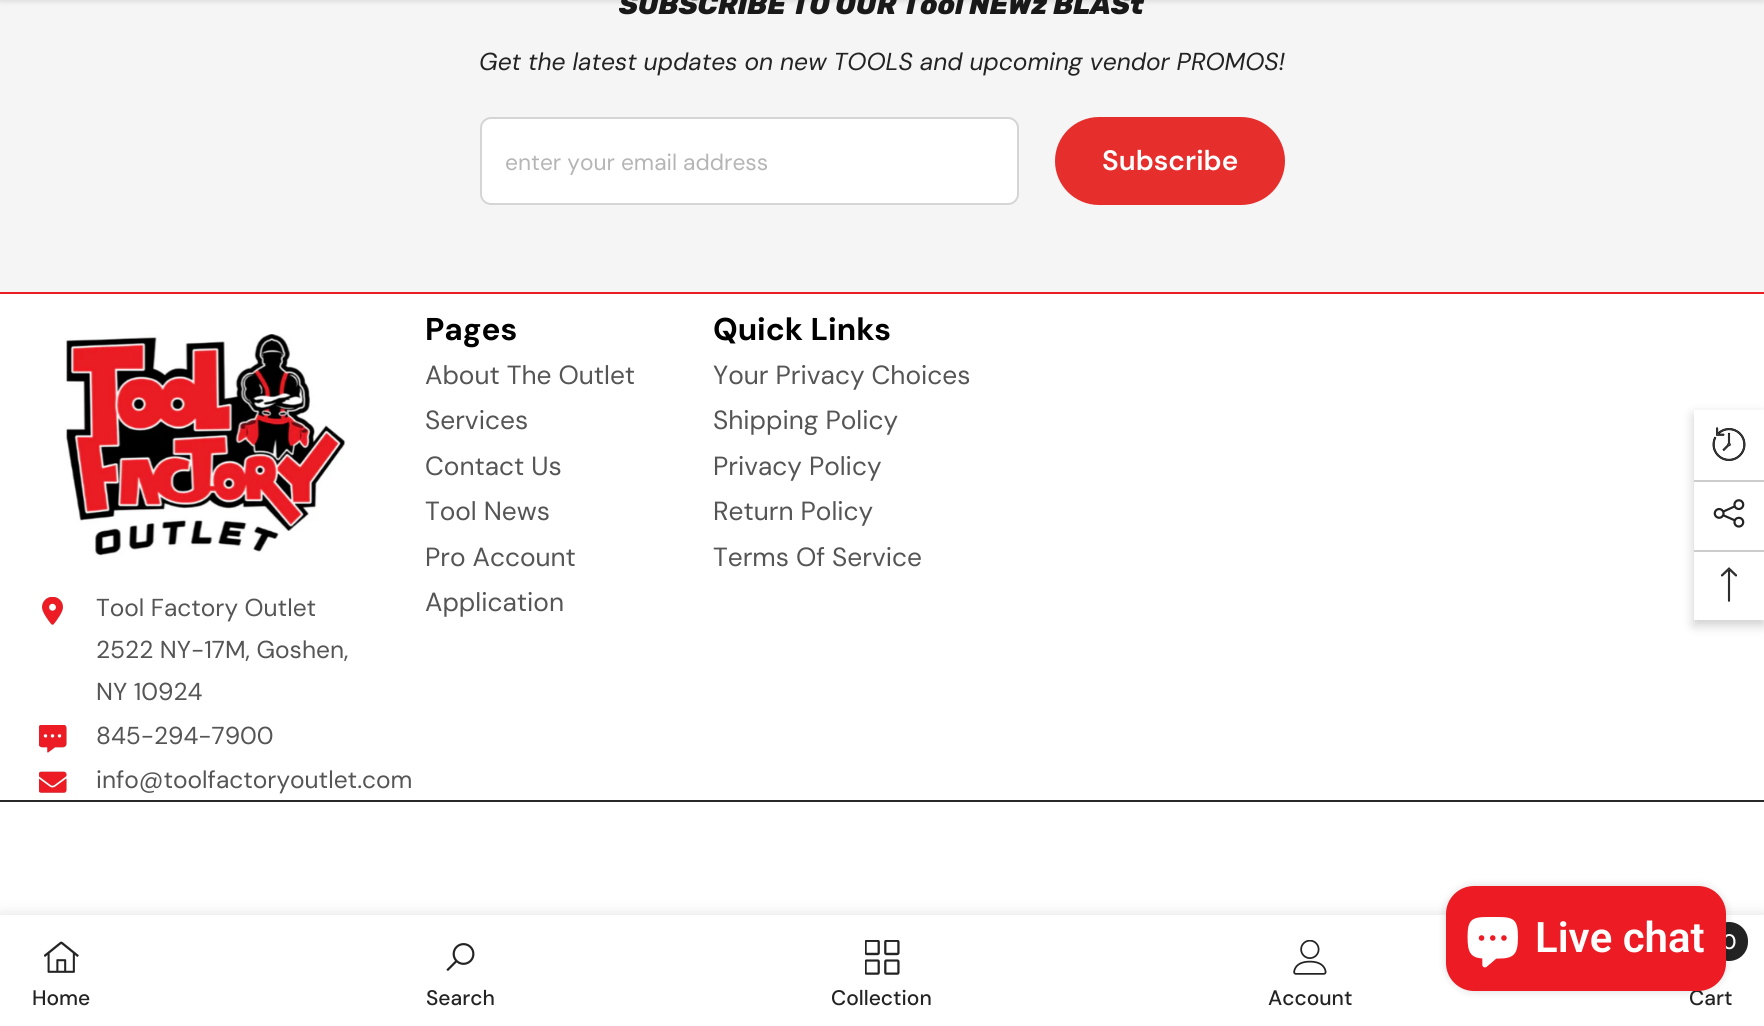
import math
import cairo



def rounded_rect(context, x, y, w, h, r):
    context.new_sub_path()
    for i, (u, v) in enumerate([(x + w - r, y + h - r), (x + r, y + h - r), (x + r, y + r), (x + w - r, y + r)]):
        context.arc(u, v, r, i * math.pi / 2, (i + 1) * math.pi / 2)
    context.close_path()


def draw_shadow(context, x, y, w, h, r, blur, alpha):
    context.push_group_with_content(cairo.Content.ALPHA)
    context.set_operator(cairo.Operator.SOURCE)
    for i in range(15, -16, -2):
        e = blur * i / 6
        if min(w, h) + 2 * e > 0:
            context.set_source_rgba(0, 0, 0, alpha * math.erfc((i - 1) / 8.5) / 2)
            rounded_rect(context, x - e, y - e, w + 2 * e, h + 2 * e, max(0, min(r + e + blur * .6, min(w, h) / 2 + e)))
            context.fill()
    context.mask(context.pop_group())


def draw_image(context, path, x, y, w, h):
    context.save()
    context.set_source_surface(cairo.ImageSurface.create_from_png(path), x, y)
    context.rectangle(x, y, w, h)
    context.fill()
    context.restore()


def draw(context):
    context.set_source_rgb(1, 1, 1)
    context.paint()
    context.set_source_rgb(245 / 255, 245 / 255, 245 / 255)
    context.rectangle(0, 0, 1764, 292)
    context.fill()
    context.set_source_rgb(0, 0, 0)
    draw_shadow(context, 0, -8, 1764, 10, 0, 2.5, 0.1)
    context.set_source_rgb(1, 1, 1)
    rounded_rect(context, 481, 118, 537, 86, 10)
    context.fill_preserve()
    context.set_source_rgb(213 / 255, 213 / 255, 213 / 255)
    context.stroke()
    context.set_source_rgb(230 / 255, 46 / 255, 45 / 255)
    rounded_rect(context, 1056, 118, 228, 86, 43)
    context.fill_preserve()
    context.stroke()
    context.set_source_rgb(236 / 255, 27 / 255, 36 / 255)
    context.rectangle(0, 292, 1764, 2)
    context.fill()
    draw_image(context, "images/1.png", 64, 334, 282, 222)
    draw_image(context, "images/2.png", 42, 597, 21, 28)
    draw_image(context, "images/3.png", 39, 725, 28, 28)
    draw_image(context, "images/4.png", 39, 771, 28, 22)
    context.set_source_rgb(40 / 255, 40 / 255, 40 / 255)
    context.rectangle(0, 800, 1764, 2)
    context.fill()
    context.set_source_rgb(0, 0, 0)
    draw_shadow(context, 0, 915, 1764, 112, 0, 8, 0.12)
    context.set_source_rgb(1, 1, 1)
    context.rectangle(0, 915, 1764, 111)
    context.fill()
    draw_image(context, "images/5.png", 44, 941, 35, 32)
    draw_image(context, "images/6.png", 446, 943, 29, 29)
    draw_image(context, "images/7.png", 865, 940, 35, 35)
    draw_image(context, "images/8.png", 1293, 940, 34, 35)
    context.set_source_rgb(35 / 255, 35 / 255, 35 / 255)
    rounded_rect(context, 1710, 922, 38, 39, 19)
    context.fill()
    draw_image(context, "images/9.png", 1723, 973, 1, 1)
    context.set_source_rgb(0, 0, 0)
    draw_shadow(context, 1694, 415, 70, 210, 0, 6, 0.2)
    context.set_source_rgb(1, 1, 1)
    context.rectangle(1694, 410, 70, 210)
    context.fill()
    draw_image(context, "images/10.png", 1712, 427, 34, 34)
    context.set_source_rgb(204 / 255, 204 / 255, 204 / 255)
    context.rectangle(1694, 480, 70, 2)
    context.fill()
    draw_image(context, "images/11.png", 1713, 499, 32, 29)
    context.rectangle(1694, 550, 70, 2)
    context.fill()
    draw_image(context, "images/12.png", 1721, 567, 16, 35)
    context.set_source_rgb(0, 0, 0)
    draw_shadow(context, 1446, 886, 280, 105, 28, 4.5, 0.15)
    context.select_font_face("Rubik ExtraBold", cairo.FontSlant.ITALIC)
    context.set_font_size(28)
    context.set_source_rgb(25 / 255, 25 / 255, 25 / 255)
    context.move_to(619, 14)
    context.show_text("SUBSCRIBE TO OUR Tool NEWz BLASt")
    context.select_font_face("DM Sans", cairo.FontSlant.ITALIC)
    context.set_font_size(24.5)
    context.set_source_rgb(35 / 255, 35 / 255, 35 / 255)
    context.move_to(479, 70)
    context.show_text("Get the latest updates on new TOOLS and upcoming vendor PROMOS!")
    context.select_font_face("DM Sans")
    context.set_font_size(22.75)
    context.set_source_rgb(181 / 255, 181 / 255, 181 / 255)
    context.move_to(505, 170)
    context.show_text("enter your email address")
    context.select_font_face("DM Sans SemiBold")
    context.set_font_size(28)
    context.set_source_rgb(1, 1, 1)
    context.move_to(1102, 170)
    context.show_text("Subscribe")
    context.select_font_face("DM Sans", cairo.FontSlant.NORMAL, cairo.FontWeight.BOLD)
    context.set_font_size(31.5)
    context.set_source_rgb(0, 0, 0)
    context.move_to(425, 340)
    context.show_text("Pages")
    context.select_font_face("DM Sans")
    context.set_font_size(26.25)
    context.set_source_rgb(85 / 255, 85 / 255, 85 / 255)
    context.move_to(425, 384)
    context.show_text("About The Outlet")
    context.move_to(425, 429)
    context.show_text("Services")
    context.move_to(425, 475)
    context.show_text("Contact Us")
    context.move_to(425, 520)
    context.show_text("Tool News")
    context.move_to(425, 566)
    context.show_text("Pro Account")
    context.move_to(425, 611)
    context.show_text("Application")
    context.select_font_face("DM Sans", cairo.FontSlant.NORMAL, cairo.FontWeight.BOLD)
    context.set_font_size(31.5)
    context.set_source_rgb(0, 0, 0)
    context.move_to(713, 340)
    context.show_text("Quick Links")
    context.select_font_face("DM Sans")
    context.set_font_size(26.25)
    context.set_source_rgb(85 / 255, 85 / 255, 85 / 255)
    context.move_to(713, 384)
    context.show_text("Your Privacy Choices")
    context.move_to(713, 429)
    context.show_text("Shipping Policy")
    context.move_to(713, 475)
    context.show_text("Privacy Policy")
    context.move_to(713, 520)
    context.show_text("Return Policy")
    context.move_to(713, 566)
    context.show_text("Terms Of Service")
    context.set_font_size(24.5)
    context.move_to(96, 616)
    context.show_text("Tool Factory Outlet")
    context.move_to(96, 658)
    context.show_text("2522 NY-17M, Goshen,")
    context.move_to(96, 700)
    context.show_text("NY 10924")
    context.move_to(96, 744)
    context.show_text("845-294-7900")
    context.move_to(96, 788)
    context.show_text("info@toolfactoryoutlet.com")
    context.select_font_face("DM Sans Medium")
    context.set_font_size(21)
    context.set_source_rgb(35 / 255, 35 / 255, 35 / 255)
    context.move_to(32, 1005)
    context.show_text("Home")
    context.move_to(426, 1005)
    context.show_text("Search")
    context.move_to(831, 1005)
    context.show_text("Collection")
    context.move_to(1268, 1005)
    context.show_text("Account")
    context.set_source_rgb(1, 1, 1)
    context.move_to(1722, 949)
    context.show_text("0")
    context.set_source_rgb(35 / 255, 35 / 255, 35 / 255)
    context.move_to(1689, 1005)
    context.show_text("Cart")
    context.set_source_rgb(236 / 255, 27 / 255, 36 / 255)
    rounded_rect(context, 1446, 886, 280, 105, 28)
    context.fill()
    draw_image(context, "images/13.png", 1467, 917, 51, 51)
    context.select_font_face("Roboto SemiBold")
    context.set_font_size(42)
    context.set_source_rgb(1, 1, 1)
    context.move_to(1535, 952)
    context.show_text("Live chat")


surface = cairo.ImageSurface(cairo.Format.RGB24, 1764, 1026)
context = cairo.Context(surface)
options = cairo.FontOptions()
options.set_hint_metrics(cairo.HintMetrics.OFF)
options.set_hint_style(cairo.HintStyle.NONE)
context.set_font_options(options)
context.set_miter_limit(4)
draw(context)
surface.write_to_png("out.png")
